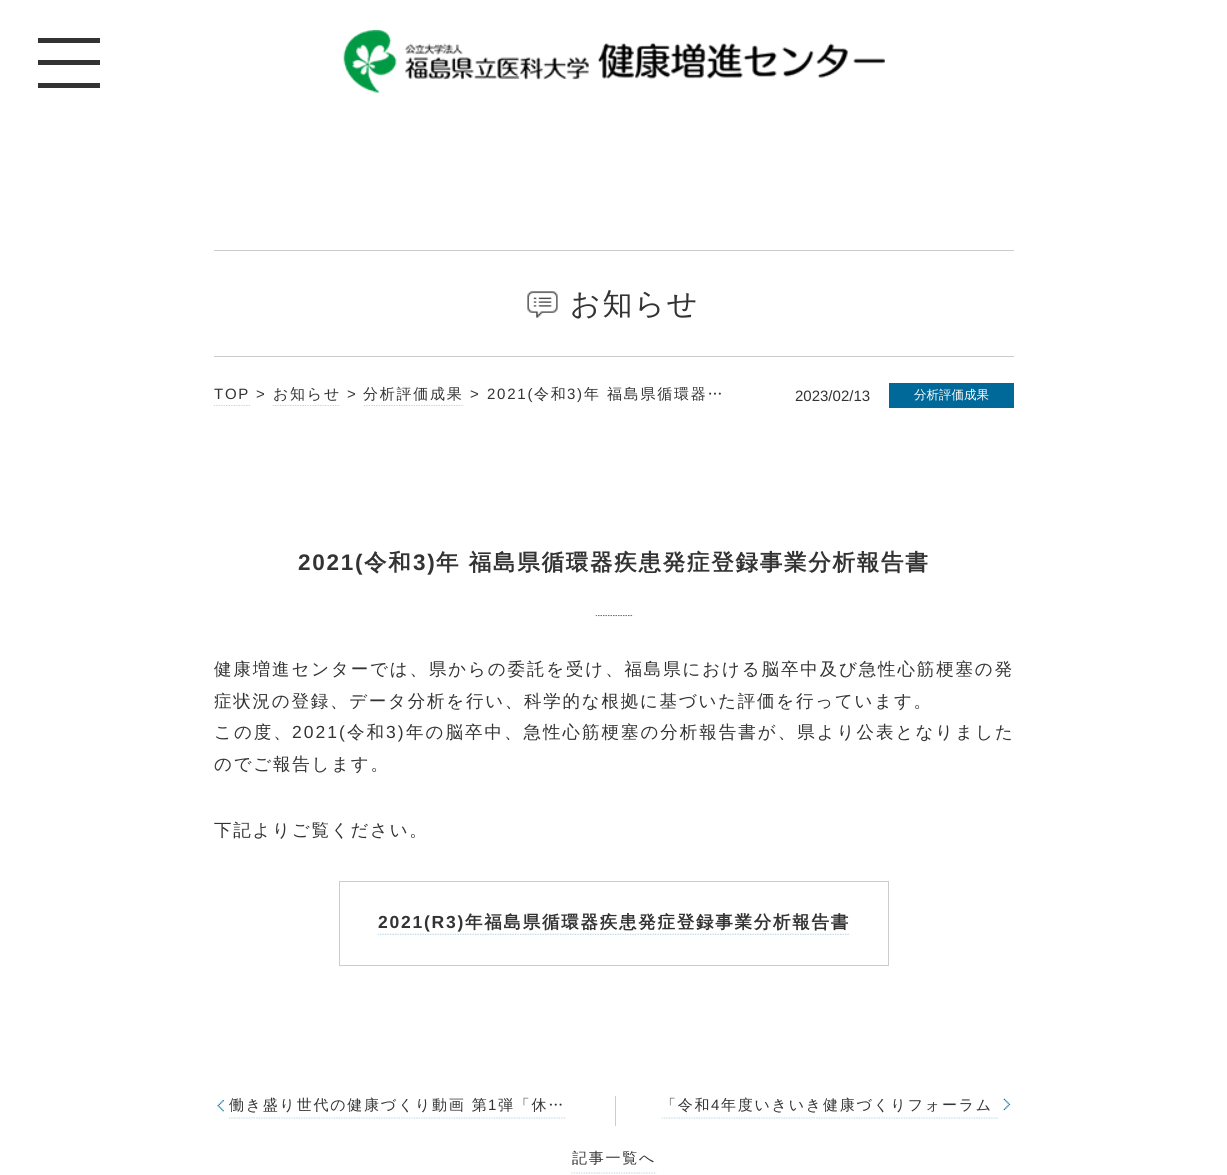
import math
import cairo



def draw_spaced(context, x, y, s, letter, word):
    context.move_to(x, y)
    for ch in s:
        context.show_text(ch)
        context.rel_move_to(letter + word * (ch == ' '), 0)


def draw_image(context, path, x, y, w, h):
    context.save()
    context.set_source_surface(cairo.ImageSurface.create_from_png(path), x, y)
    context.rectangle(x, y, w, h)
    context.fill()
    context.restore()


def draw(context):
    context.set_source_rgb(1, 1, 1)
    context.paint()
    context.set_source_rgb(51 / 255, 51 / 255, 51 / 255)
    context.rectangle(38, 38, 62, 5)
    context.fill()
    context.rectangle(38, 60, 62, 5)
    context.fill()
    context.rectangle(38, 83, 62, 5)
    context.fill()
    draw_image(context, "images/1.png", 343, 30, 542, 63)
    context.set_source_rgb(204 / 255, 204 / 255, 204 / 255)
    context.rectangle(214, 250, 800, 1)
    context.fill()
    context.rectangle(214, 356, 800, 1)
    context.fill()
    draw_image(context, "images/2.png", 527, 291, 31, 27)
    draw_image(context, "images/3.png", 213, 405, 37, 1)
    draw_image(context, "images/4.png", 272, 405, 68, 1)
    draw_image(context, "images/5.png", 363, 405, 101, 1)
    context.set_source_rgb(0, 105 / 255, 154 / 255)
    context.rectangle(889, 383, 125, 25)
    context.fill()
    draw_image(context, "images/6.png", 595, 615, 39, 2)
    context.rectangle(339.5, 881.5, 549, 84)
    context.set_source_rgb(204 / 255, 204 / 255, 204 / 255)
    context.set_line_width(1)
    context.stroke()
    draw_image(context, "images/7.png", 377, 933, 473, 2)
    draw_image(context, "images/8.png", 217, 1100, 7, 12)
    draw_image(context, "images/9.png", 229, 1117, 336, 2)
    draw_image(context, "images/10.png", 661, 1117, 338, 2)
    draw_image(context, "images/11.png", 1003, 1098, 8, 13)
    context.rectangle(615, 1096, 1, 30)
    context.fill()
    draw_image(context, "images/12.png", 571, 1172, 86, 2)
    context.select_font_face("WenQuanYi Zen Hei Medium")
    context.set_font_size(30)
    context.set_source_rgb(51 / 255, 51 / 255, 51 / 255)
    draw_spaced(context, 570, 314, "お知らせ", 1.75, 0)
    context.select_font_face("Liberation Sans")
    context.set_font_size(15)
    draw_spaced(context, 214, 399, "TOP", 1.75, 0)
    draw_spaced(context, 256, 399, ">", 1.75, 0)
    context.select_font_face("WenQuanYi Zen Hei Medium")
    draw_spaced(context, 273, 399, "お知らせ", 1.75, 0)
    context.select_font_face("Liberation Sans")
    draw_spaced(context, 347, 399, ">", 1.75, 0)
    context.select_font_face("WenQuanYi Zen Hei Medium")
    draw_spaced(context, 363, 399, "分析評価成果", 1.75, 0)
    context.select_font_face("Liberation Sans")
    draw_spaced(context, 470, 399, ">", 1.75, 0)
    draw_spaced(context, 487, 399, "2021(", 1.75, 0)
    context.select_font_face("WenQuanYi Zen Hei Medium")
    draw_spaced(context, 534, 399, "令和", 1.75, 0)
    context.select_font_face("Liberation Sans")
    draw_spaced(context, 567, 399, "3)", 1.75, 0)
    context.select_font_face("WenQuanYi Zen Hei Medium")
    draw_spaced(context, 584, 399, "年 福島県循環器…", 1.75, 0)
    context.select_font_face("Liberation Sans")
    context.move_to(795, 401)
    context.show_text("2023/02/13")
    context.select_font_face("WenQuanYi Zen Hei Medium")
    context.set_font_size(12.5)
    context.set_source_rgb(1, 1, 1)
    context.move_to(914, 399)
    context.show_text("分析評価成果")
    context.select_font_face("Liberation Sans", cairo.FontSlant.NORMAL, cairo.FontWeight.BOLD)
    context.set_font_size(22.5)
    context.set_source_rgb(51 / 255, 51 / 255, 51 / 255)
    draw_spaced(context, 298, 570, "2021(", 1.75, 0)
    context.select_font_face("WenQuanYi Zen Hei", cairo.FontSlant.NORMAL, cairo.FontWeight.BOLD)
    draw_spaced(context, 364, 570, "令和", 1.75, 0)
    context.select_font_face("Liberation Sans", cairo.FontSlant.NORMAL, cairo.FontWeight.BOLD)
    draw_spaced(context, 413, 570, "3)", 1.75, 0)
    context.select_font_face("WenQuanYi Zen Hei", cairo.FontSlant.NORMAL, cairo.FontWeight.BOLD)
    draw_spaced(context, 436, 570, "年 福島県循環器疾患発症登録事業分析報告書", 1.75, 0)
    context.select_font_face("WenQuanYi Zen Hei Medium")
    context.set_font_size(17.5)
    draw_spaced(context, 214, 675, "健康増進センターでは、県からの委託を受け、福島県における脳卒中及び急性心筋梗塞の発", 1.85, 0)
    draw_spaced(context, 214, 707, "症状況の登録、データ分析を行い、科学的な根拠に基づいた評価を行っています。", 1.75, 0)
    draw_spaced(context, 214, 738, "この度、", 2, 0)
    context.select_font_face("Liberation Sans")
    draw_spaced(context, 292, 738, "2021(", 2, 0)
    context.select_font_face("WenQuanYi Zen Hei Medium")
    draw_spaced(context, 347, 738, "令和", 2, 0)
    context.select_font_face("Liberation Sans")
    draw_spaced(context, 386, 738, "3)", 2, 0)
    context.select_font_face("WenQuanYi Zen Hei Medium")
    draw_spaced(context, 406, 738, "年の脳卒中、急性心筋梗塞の分析報告書が、県より公表となりました", 2, 0)
    draw_spaced(context, 214, 770, "のでご報告します。", 1.75, 0)
    draw_spaced(context, 214, 836, "下記よりご覧ください。", 1.75, 0)
    context.select_font_face("Liberation Sans", cairo.FontSlant.NORMAL, cairo.FontWeight.BOLD)
    draw_spaced(context, 378, 928, "2021(R3)", 1.75, 0)
    context.select_font_face("WenQuanYi Zen Hei", cairo.FontSlant.NORMAL, cairo.FontWeight.BOLD)
    draw_spaced(context, 465, 928, "年福島県循環器疾患発症登録事業分析報告書", 1.75, 0)
    context.select_font_face("WenQuanYi Zen Hei Medium")
    context.set_font_size(15)
    draw_spaced(context, 229, 1110, "働き盛り世代の健康づくり動画 第", 1.75, 0)
    context.select_font_face("Liberation Sans")
    draw_spaced(context, 488, 1110, "1", 1.75, 0)
    context.select_font_face("WenQuanYi Zen Hei Medium")
    draw_spaced(context, 498, 1110, "弾「休…", 1.75, 0)
    draw_spaced(context, 661, 1110, "「令和", 1.75, 0)
    context.select_font_face("Liberation Sans")
    draw_spaced(context, 711, 1110, "4", 1.75, 0)
    context.select_font_face("WenQuanYi Zen Hei Medium")
    draw_spaced(context, 721, 1110, "年度いきいき健康づくりフォーラム", 1.75, 0)
    draw_spaced(context, 572, 1163, "記事一覧へ", 1.75, 0)


surface = cairo.ImageSurface(cairo.Format.RGB24, 1227, 1175)
context = cairo.Context(surface)
options = cairo.FontOptions()
options.set_hint_metrics(cairo.HintMetrics.OFF)
options.set_hint_style(cairo.HintStyle.NONE)
context.set_font_options(options)
context.set_miter_limit(4)
draw(context)
surface.write_to_png("out.png")
